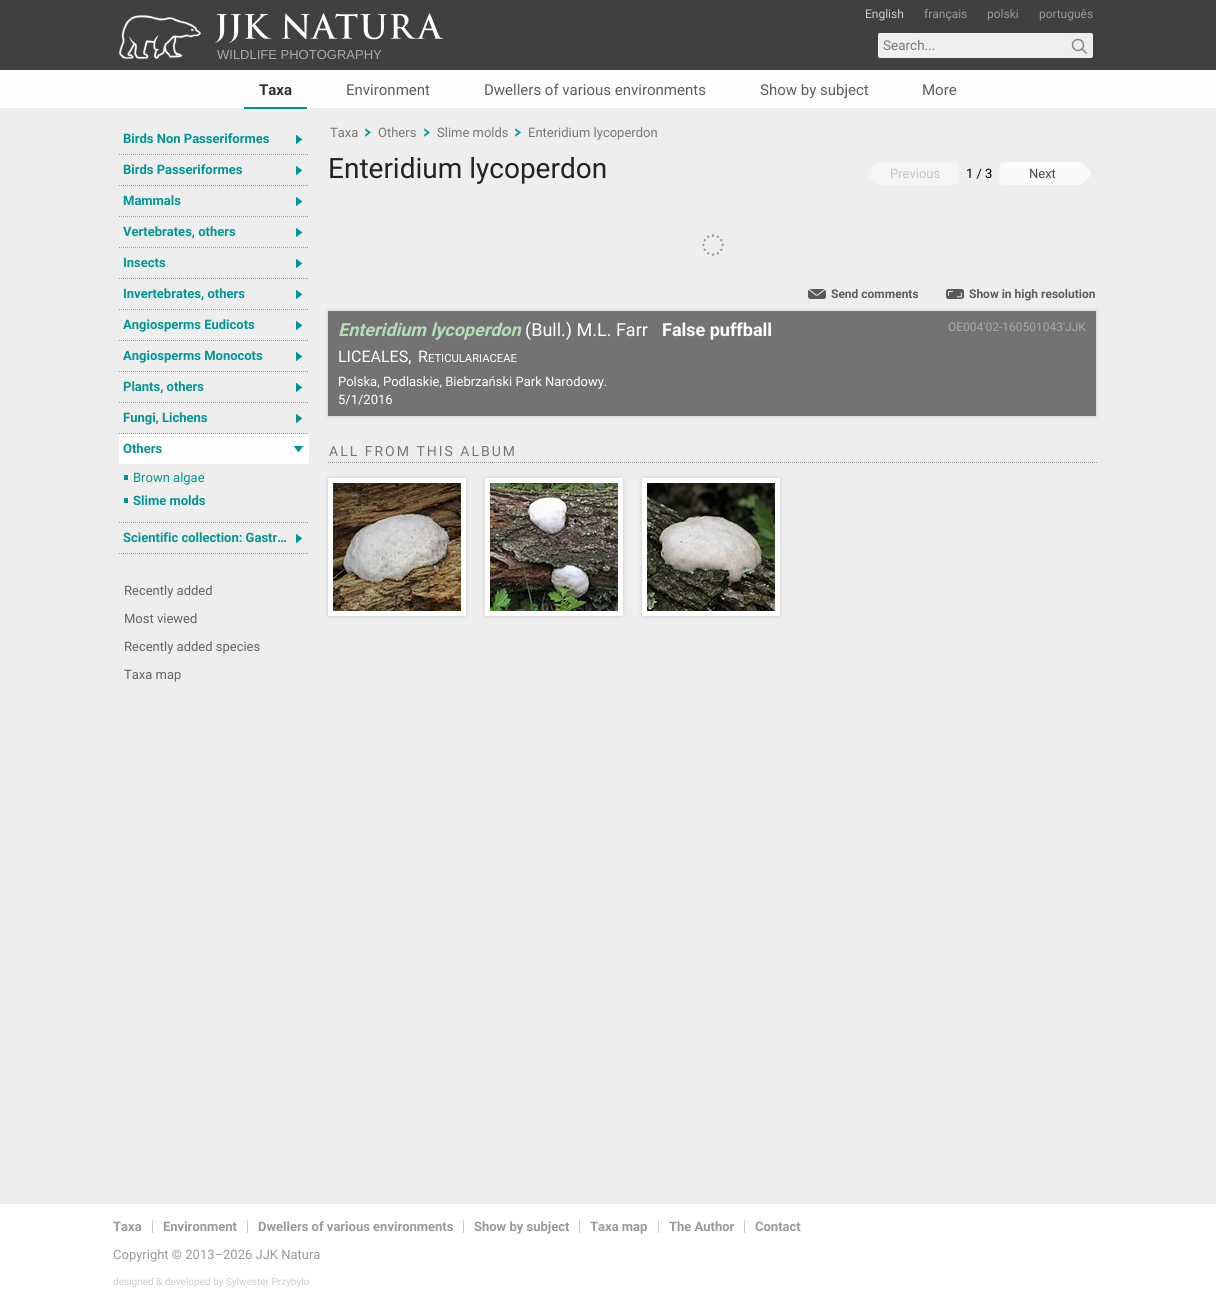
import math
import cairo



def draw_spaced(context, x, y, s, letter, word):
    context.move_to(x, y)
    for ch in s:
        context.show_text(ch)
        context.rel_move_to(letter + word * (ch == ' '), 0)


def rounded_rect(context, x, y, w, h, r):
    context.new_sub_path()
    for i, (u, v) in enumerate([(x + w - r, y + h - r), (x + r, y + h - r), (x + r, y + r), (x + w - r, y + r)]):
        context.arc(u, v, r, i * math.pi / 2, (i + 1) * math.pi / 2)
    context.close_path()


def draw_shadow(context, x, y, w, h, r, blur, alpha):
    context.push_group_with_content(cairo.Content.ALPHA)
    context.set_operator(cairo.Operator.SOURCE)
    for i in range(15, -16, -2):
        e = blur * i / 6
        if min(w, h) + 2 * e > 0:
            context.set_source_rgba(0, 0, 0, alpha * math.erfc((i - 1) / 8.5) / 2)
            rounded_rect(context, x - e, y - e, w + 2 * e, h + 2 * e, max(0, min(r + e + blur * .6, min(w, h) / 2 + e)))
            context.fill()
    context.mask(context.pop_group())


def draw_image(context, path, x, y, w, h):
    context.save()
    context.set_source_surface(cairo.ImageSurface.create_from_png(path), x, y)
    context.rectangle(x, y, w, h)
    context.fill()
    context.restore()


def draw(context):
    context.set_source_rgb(238 / 255, 238 / 255, 238 / 255)
    context.paint()
    context.set_source_rgb(64 / 255, 64 / 255, 64 / 255)
    context.rectangle(0, 0, 1216, 70)
    context.fill()
    context.set_source_rgb(238 / 255, 238 / 255, 238 / 255)
    rounded_rect(context, 878, 33, 215, 25, 2)
    context.fill()
    context.set_source_rgba(238 / 255, 238 / 255, 238 / 255, 0.8)
    rounded_rect(context, 878, 33, 188, 25, 2)
    context.fill()
    draw_image(context, "images/1.png", 1071, 38, 17, 16)
    draw_image(context, "images/2.png", 118, 13, 326, 47)
    context.set_source_rgb(254 / 255, 254 / 255, 254 / 255)
    context.rectangle(0, 70, 1216, 38)
    context.fill()
    context.set_source_rgb(0, 149 / 255, 149 / 255)
    context.rectangle(244, 107, 63, 2)
    context.fill()
    context.new_path()
    context.move_to(119, 154.5)
    context.line_to(309, 154.5)
    context.set_source_rgb(153 / 255, 153 / 255, 153 / 255)
    context.set_line_width(1)
    context.set_dash([1, 1])
    context.stroke()
    draw_image(context, "images/3.png", 296, 134, 7, 11)
    context.new_path()
    context.move_to(119, 185.5)
    context.line_to(309, 185.5)
    context.stroke()
    draw_image(context, "images/3.png", 296, 165, 7, 11)
    context.new_path()
    context.move_to(119, 216.5)
    context.line_to(309, 216.5)
    context.stroke()
    draw_image(context, "images/3.png", 296, 196, 7, 11)
    context.new_path()
    context.move_to(119, 247.5)
    context.line_to(309, 247.5)
    context.stroke()
    draw_image(context, "images/3.png", 296, 227, 7, 11)
    context.new_path()
    context.move_to(119, 278.5)
    context.line_to(309, 278.5)
    context.stroke()
    draw_image(context, "images/3.png", 296, 258, 7, 11)
    context.new_path()
    context.move_to(119, 309.5)
    context.line_to(309, 309.5)
    context.stroke()
    draw_image(context, "images/3.png", 296, 289, 7, 11)
    context.new_path()
    context.move_to(119, 340.5)
    context.line_to(309, 340.5)
    context.stroke()
    draw_image(context, "images/3.png", 296, 320, 7, 11)
    context.new_path()
    context.move_to(119, 371.5)
    context.line_to(309, 371.5)
    context.stroke()
    draw_image(context, "images/3.png", 296, 351, 7, 11)
    context.new_path()
    context.move_to(119, 402.5)
    context.line_to(309, 402.5)
    context.stroke()
    draw_image(context, "images/3.png", 296, 382, 7, 11)
    context.new_path()
    context.move_to(119, 433.5)
    context.line_to(309, 433.5)
    context.stroke()
    draw_image(context, "images/3.png", 296, 413, 7, 11)
    context.new_path()
    context.move_to(119, 522.5)
    context.line_to(309, 522.5)
    context.stroke()
    context.set_source_rgb(254 / 255, 254 / 255, 254 / 255)
    rounded_rect(context, 119, 434, 190, 30, 2)
    context.fill()
    draw_image(context, "images/4.png", 293, 446, 11, 7)
    context.set_source_rgb(0, 149 / 255, 149 / 255)
    context.rectangle(124, 475, 4, 5)
    context.fill()
    context.rectangle(124, 498, 4, 5)
    context.fill()
    context.new_path()
    context.move_to(119, 553.5)
    context.line_to(309, 553.5)
    context.set_source_rgb(153 / 255, 153 / 255, 153 / 255)
    context.stroke()
    draw_image(context, "images/3.png", 296, 533, 7, 11)
    draw_image(context, "images/5.png", 365, 128, 6, 9)
    draw_image(context, "images/5.png", 424, 128, 6, 9)
    draw_image(context, "images/5.png", 515, 128, 6, 9)
    draw_image(context, "images/6.png", 868, 162, 91, 23)
    draw_image(context, "images/7.png", 999, 162, 92, 23)
    draw_image(context, "images/8.png", 702, 234, 22, 22)
    draw_image(context, "images/9.png", 808, 289, 18, 10)
    draw_image(context, "images/10.png", 946, 289, 18, 10)
    context.set_source_rgb(119 / 255, 119 / 255, 119 / 255)
    draw_shadow(context, 328, 311, 768, 105, 0, 2, 0.3)
    context.set_source_rgb(115 / 255, 115 / 255, 115 / 255)
    context.rectangle(328, 311, 768, 105)
    context.fill()
    context.new_path()
    context.move_to(328, 462.5)
    context.line_to(1098, 462.5)
    context.set_source_rgb(153 / 255, 153 / 255, 153 / 255)
    context.stroke()
    context.set_source_rgb(119 / 255, 119 / 255, 119 / 255)
    draw_shadow(context, 328, 478, 138, 138, 2, 2, 0.3)
    context.new_path()
    context.move_to(330.5, 480.5)
    context.line_to(463.5, 480.5)
    context.line_to(463.5, 613.5)
    context.line_to(330.5, 613.5)
    context.close_path()
    context.set_source_rgb(1, 1, 1)
    context.set_line_width(5)
    context.set_dash([])
    context.stroke()
    draw_image(context, "images/11.png", 333, 483, 128, 128)
    context.set_source_rgb(119 / 255, 119 / 255, 119 / 255)
    draw_shadow(context, 485, 478, 138, 138, 2, 2, 0.3)
    context.new_path()
    context.move_to(487.5, 480.5)
    context.line_to(620.5, 480.5)
    context.line_to(620.5, 613.5)
    context.line_to(487.5, 613.5)
    context.close_path()
    context.set_source_rgb(1, 1, 1)
    context.stroke()
    draw_image(context, "images/12.png", 490, 483, 128, 128)
    context.set_source_rgb(119 / 255, 119 / 255, 119 / 255)
    draw_shadow(context, 642, 478, 138, 138, 2, 2, 0.3)
    context.new_path()
    context.move_to(644.5, 480.5)
    context.line_to(777.5, 480.5)
    context.line_to(777.5, 613.5)
    context.line_to(644.5, 613.5)
    context.close_path()
    context.set_source_rgb(1, 1, 1)
    context.stroke()
    draw_image(context, "images/13.png", 647, 483, 128, 128)
    context.rectangle(0, 1204, 1216, 108)
    context.fill()
    context.set_source_rgb(204 / 255, 204 / 255, 204 / 255)
    context.rectangle(152, 1220, 1, 13)
    context.fill()
    context.rectangle(247, 1220, 1, 13)
    context.fill()
    context.rectangle(463, 1220, 1, 13)
    context.fill()
    context.rectangle(579, 1220, 1, 13)
    context.fill()
    context.rectangle(658, 1220, 1, 13)
    context.fill()
    context.rectangle(744, 1220, 1, 13)
    context.fill()
    context.select_font_face("Roboto")
    context.set_font_size(12)
    context.move_to(865, 18)
    context.show_text("English")
    context.set_source_rgb(153 / 255, 153 / 255, 153 / 255)
    context.move_to(924, 18)
    context.show_text("français")
    context.move_to(987, 18)
    context.show_text("polski")
    context.move_to(1039, 18)
    context.show_text("português")
    context.set_font_size(13.5)
    context.set_source_rgb(119 / 255, 119 / 255, 119 / 255)
    context.move_to(883, 50)
    context.show_text("Search...")
    context.select_font_face("Liberation Sans")
    context.set_font_size(13)
    context.set_source_rgb(170 / 255, 170 / 255, 170 / 255)
    context.move_to(217, 59)
    context.show_text("WILDLIFE PHOTOGRAPHY")
    context.select_font_face("Roboto", cairo.FontSlant.NORMAL, cairo.FontWeight.BOLD)
    context.set_font_size(15)
    context.set_source_rgb(51 / 255, 51 / 255, 51 / 255)
    context.move_to(259, 95)
    context.show_text("Taxa")
    context.select_font_face("Roboto")
    context.set_source_rgb(92 / 255, 92 / 255, 92 / 255)
    context.move_to(346, 95)
    context.show_text("Environment")
    context.move_to(484, 95)
    context.show_text("Dwellers of various environments")
    context.move_to(760, 95)
    context.show_text("Show by subject")
    context.move_to(922, 95)
    context.show_text("More")
    context.select_font_face("Roboto", cairo.FontSlant.NORMAL, cairo.FontWeight.BOLD)
    context.set_font_size(13)
    context.set_source_rgb(0, 149 / 255, 149 / 255)
    context.move_to(123, 143)
    context.show_text("Birds Non Passeriformes")
    context.move_to(123, 174)
    context.show_text("Birds Passeriformes")
    context.move_to(123, 205)
    context.show_text("Mammals")
    context.move_to(123, 236)
    context.show_text("Vertebrates, others")
    context.move_to(123, 267)
    context.show_text("Insects")
    context.move_to(123, 298)
    context.show_text("Invertebrates, others")
    context.move_to(123, 329)
    context.show_text("Angiosperms Eudicots")
    context.move_to(123, 360)
    context.show_text("Angiosperms Monocots")
    context.move_to(123, 391)
    context.show_text("Plants, others")
    context.move_to(123, 422)
    context.show_text("Fungi, Lichens")
    context.move_to(123, 453)
    context.show_text("Others")
    context.select_font_face("Roboto")
    context.move_to(133, 482)
    context.show_text("Brown algae")
    context.select_font_face("Roboto", cairo.FontSlant.NORMAL, cairo.FontWeight.BOLD)
    context.move_to(133, 505)
    context.show_text("Slime molds")
    context.move_to(123, 542)
    context.show_text("Scientific collection: Gastr…")
    context.select_font_face("Roboto")
    context.set_source_rgb(98 / 255, 98 / 255, 98 / 255)
    context.move_to(124, 595)
    context.show_text("Recently added")
    context.move_to(124, 623)
    context.show_text("Most viewed")
    context.move_to(124, 651)
    context.show_text("Recently added species")
    context.move_to(124, 679)
    context.show_text("Taxa map")
    context.set_source_rgb(119 / 255, 119 / 255, 119 / 255)
    context.move_to(330, 137)
    context.show_text("Taxa")
    context.move_to(378, 137)
    context.show_text("Others")
    context.move_to(437, 137)
    context.show_text("Slime molds")
    context.move_to(528, 137)
    context.show_text("Enteridium lycoperdon")
    context.set_font_size(28)
    context.set_source_rgb(34 / 255, 34 / 255, 34 / 255)
    context.move_to(328, 178)
    context.show_text("Enteridium lycoperdon")
    context.set_font_size(13)
    context.set_source_rgb(198 / 255, 198 / 255, 198 / 255)
    context.move_to(890, 178)
    context.show_text("Previous")
    context.set_source_rgb(0, 0, 0)
    context.move_to(966, 178)
    context.show_text("1 / 3")
    context.set_source_rgb(75 / 255, 75 / 255, 75 / 255)
    context.move_to(1029, 178)
    context.show_text("Next")
    context.select_font_face("Roboto", cairo.FontSlant.NORMAL, cairo.FontWeight.BOLD)
    context.set_font_size(12)
    context.set_source_rgb(92 / 255, 92 / 255, 92 / 255)
    context.move_to(831, 298)
    context.show_text("Send comments")
    context.move_to(969, 298)
    context.show_text("Show in high resolution")
    context.select_font_face("Roboto", cairo.FontSlant.ITALIC, cairo.FontWeight.BOLD)
    context.set_font_size(18)
    context.set_source_rgb(182 / 255, 222 / 255, 182 / 255)
    context.move_to(338, 336)
    context.show_text("Enteridium lycoperdon")
    context.select_font_face("Roboto")
    context.set_source_rgb(1, 1, 1)
    context.move_to(525, 336)
    context.show_text("(Bull.) M.L. Farr")
    context.select_font_face("Roboto", cairo.FontSlant.NORMAL, cairo.FontWeight.BOLD)
    context.move_to(662, 336)
    context.show_text("False puffball")
    context.select_font_face("Roboto")
    context.set_font_size(12)
    context.set_source_rgb(170 / 255, 170 / 255, 170 / 255)
    context.move_to(948, 331)
    context.show_text("OE004'02-160501043'JJK")
    context.set_font_size(16)
    context.set_source_rgb(1, 1, 1)
    context.move_to(338, 362)
    context.show_text("LICEALES,")
    context.move_to(418, 362)
    context.show_text("R")
    context.set_font_size(11.25)
    context.move_to(428, 362)
    context.show_text("ETICULARIACEAE")
    context.set_font_size(13)
    context.move_to(338, 386)
    context.show_text("Polska, Podlaskie, Biebrzański Park Narodowy.")
    context.move_to(338, 404)
    context.show_text("5/1/2016")
    context.set_font_size(14)
    context.set_source_rgb(119 / 255, 119 / 255, 119 / 255)
    draw_spaced(context, 329, 456, "ALL FROM THIS ALBUM", 2, 0)
    context.select_font_face("Roboto", cairo.FontSlant.NORMAL, cairo.FontWeight.BOLD)
    context.set_font_size(13)
    context.set_source_rgb(153 / 255, 153 / 255, 153 / 255)
    context.move_to(113, 1231)
    context.show_text("Taxa")
    context.move_to(163, 1231)
    context.show_text("Environment")
    context.move_to(258, 1231)
    context.show_text("Dwellers of various environments")
    context.move_to(474, 1231)
    context.show_text("Show by subject")
    context.move_to(590, 1231)
    context.show_text("Taxa map")
    context.move_to(669, 1231)
    context.show_text("The Author")
    context.move_to(755, 1231)
    context.show_text("Contact")
    context.select_font_face("Roboto")
    context.move_to(113, 1259)
    context.show_text("Copyright © 2013–2026 JJK Natura")
    context.set_font_size(10)
    context.set_source_rgb(204 / 255, 204 / 255, 204 / 255)
    context.move_to(113, 1285)
    context.show_text("designed & developed by Sylwester Przybyło")


surface = cairo.ImageSurface(cairo.Format.RGB24, 1216, 1312)
context = cairo.Context(surface)
options = cairo.FontOptions()
options.set_hint_metrics(cairo.HintMetrics.OFF)
options.set_hint_style(cairo.HintStyle.NONE)
context.set_font_options(options)
context.set_miter_limit(4)
draw(context)
surface.write_to_png("out.png")
